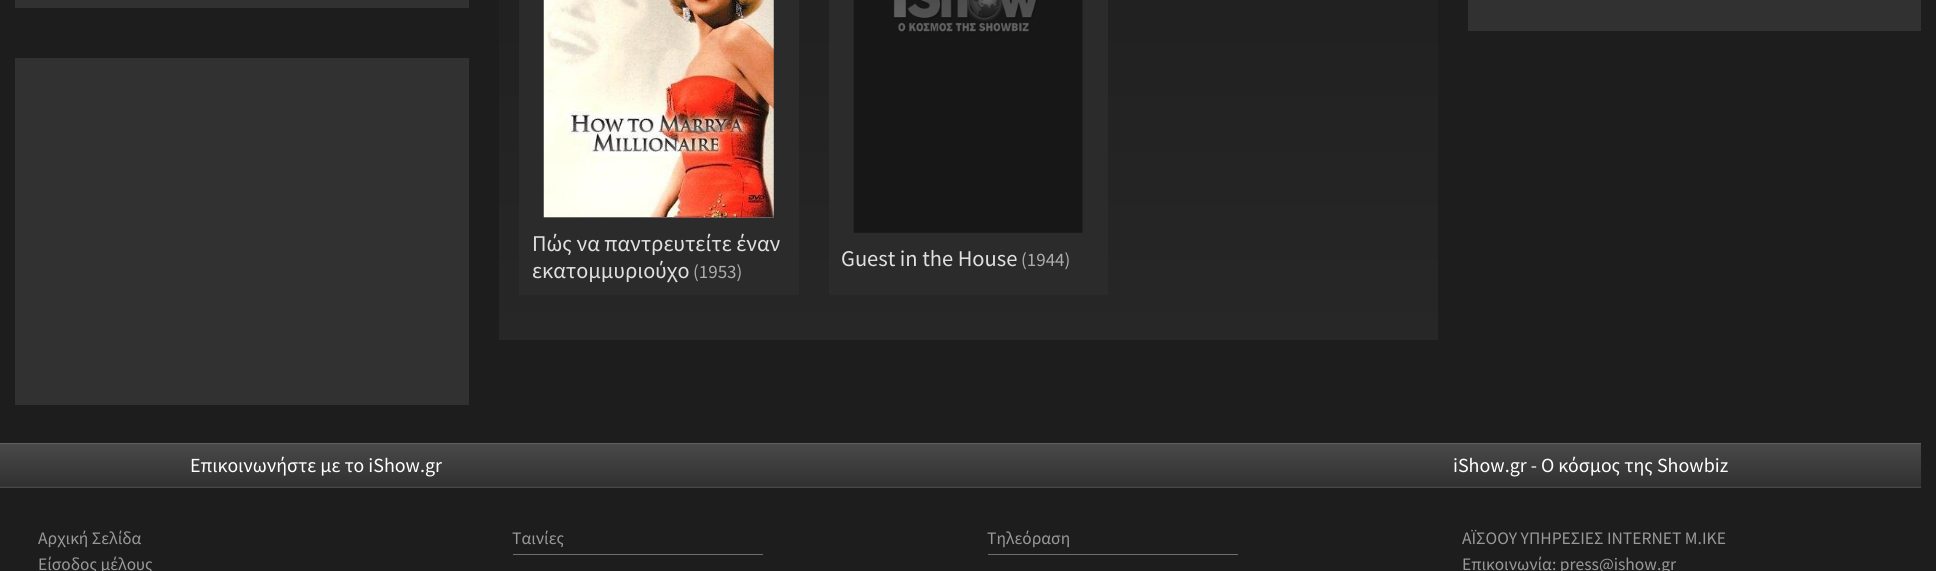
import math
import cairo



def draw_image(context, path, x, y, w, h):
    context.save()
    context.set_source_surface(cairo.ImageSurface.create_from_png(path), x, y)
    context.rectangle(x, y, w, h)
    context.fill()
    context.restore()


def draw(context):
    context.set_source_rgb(29 / 255, 29 / 255, 29 / 255)
    context.paint()
    context.set_source_rgb(49 / 255, 49 / 255, 49 / 255)
    context.rectangle(15, 0, 454, 8)
    context.fill()
    context.rectangle(15, 58, 454, 347)
    context.fill()
    context.rectangle(1468, 0, 453, 31)
    context.fill()
    gradient = cairo.LinearGradient(968, -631, 968, 340)
    gradient.add_color_stop_rgba(0, 21 / 255, 21 / 255, 21 / 255, 1)
    gradient.add_color_stop_rgba(1, 39 / 255, 39 / 255, 39 / 255, 1)
    context.set_source(gradient)
    context.rectangle(499, 0, 939, 340)
    context.fill()
    context.set_source_rgb(43 / 255, 43 / 255, 43 / 255)
    context.rectangle(519, 0, 280, 295)
    context.fill()
    draw_image(context, "images/1.png", 543, 0, 231, 218)
    context.rectangle(829, 0, 279, 295)
    context.fill()
    draw_image(context, "images/2.png", 853, 0, 230, 233)
    gradient = cairo.LinearGradient(953, 444, 953, 486)
    gradient.add_color_stop_rgba(0, 73 / 255, 73 / 255, 73 / 255, 1)
    gradient.add_color_stop_rgba(1, 49 / 255, 49 / 255, 49 / 255, 1)
    context.set_source(gradient)
    context.rectangle(0, 444, 1921, 42)
    context.fill()
    gradient = cairo.LinearGradient(953, 486, 953, 529)
    gradient.add_color_stop_rgba(0, 73 / 255, 73 / 255, 73 / 255, 1)
    gradient.add_color_stop_rgba(1, 49 / 255, 49 / 255, 49 / 255, 1)
    context.set_source(gradient)
    context.rectangle(0, 487, 1921, 1)
    context.fill()
    context.set_source_rgb(95 / 255, 95 / 255, 95 / 255)
    context.rectangle(0, 443, 1921, 1)
    context.fill()
    context.set_source_rgb(55 / 255, 55 / 255, 55 / 255)
    context.rectangle(0, 486, 1921, 1)
    context.fill()
    context.set_source_rgb(110 / 255, 110 / 255, 110 / 255)
    context.rectangle(513, 554, 250, 1)
    context.fill()
    context.rectangle(988, 554, 250, 1)
    context.fill()
    context.select_font_face("Source Sans Pro")
    context.set_font_size(22.5)
    context.set_source_rgb(224 / 255, 224 / 255, 224 / 255)
    context.move_to(532, 251)
    context.show_text("Πώς να παντρευτείτε έναν")
    context.move_to(532, 278)
    context.show_text("εκατομμυριούχο")
    context.set_font_size(19)
    context.set_source_rgb(173 / 255, 173 / 255, 173 / 255)
    context.move_to(693, 278)
    context.show_text("(1953)")
    context.set_font_size(22.5)
    context.set_source_rgb(224 / 255, 224 / 255, 224 / 255)
    context.move_to(841, 266)
    context.show_text("Guest in the House")
    context.set_font_size(19)
    context.set_source_rgb(173 / 255, 173 / 255, 173 / 255)
    context.move_to(1021, 266)
    context.show_text("(1944)")
    context.set_font_size(20)
    context.set_source_rgb(1, 1, 1)
    context.move_to(190, 472)
    context.show_text("Επικοινωνήστε με το iShow.gr")
    context.move_to(1453, 472)
    context.show_text("iShow.gr - Ο κόσμος της Showbiz")
    context.set_font_size(17.5)
    context.set_source_rgb(154 / 255, 153 / 255, 153 / 255)
    context.move_to(38, 544)
    context.show_text("Αρχική Σελίδα")
    context.move_to(38, 570)
    context.show_text("Είσοδος μέλους")
    context.move_to(512, 544)
    context.show_text("Ταινίες")
    context.move_to(987, 544)
    context.show_text("Τηλεόραση")
    context.move_to(1462, 544)
    context.show_text("ΑΪΣΟΟΥ ΥΠΗΡΕΣΙΕΣ INTERNET Μ.ΙΚΕ")
    context.move_to(1462, 570)
    context.show_text("Επικοινωνία: press@ishow.gr")


surface = cairo.ImageSurface(cairo.Format.RGB24, 1936, 571)
context = cairo.Context(surface)
options = cairo.FontOptions()
options.set_hint_metrics(cairo.HintMetrics.OFF)
options.set_hint_style(cairo.HintStyle.NONE)
context.set_font_options(options)
context.set_miter_limit(4)
draw(context)
surface.write_to_png("out.png")
